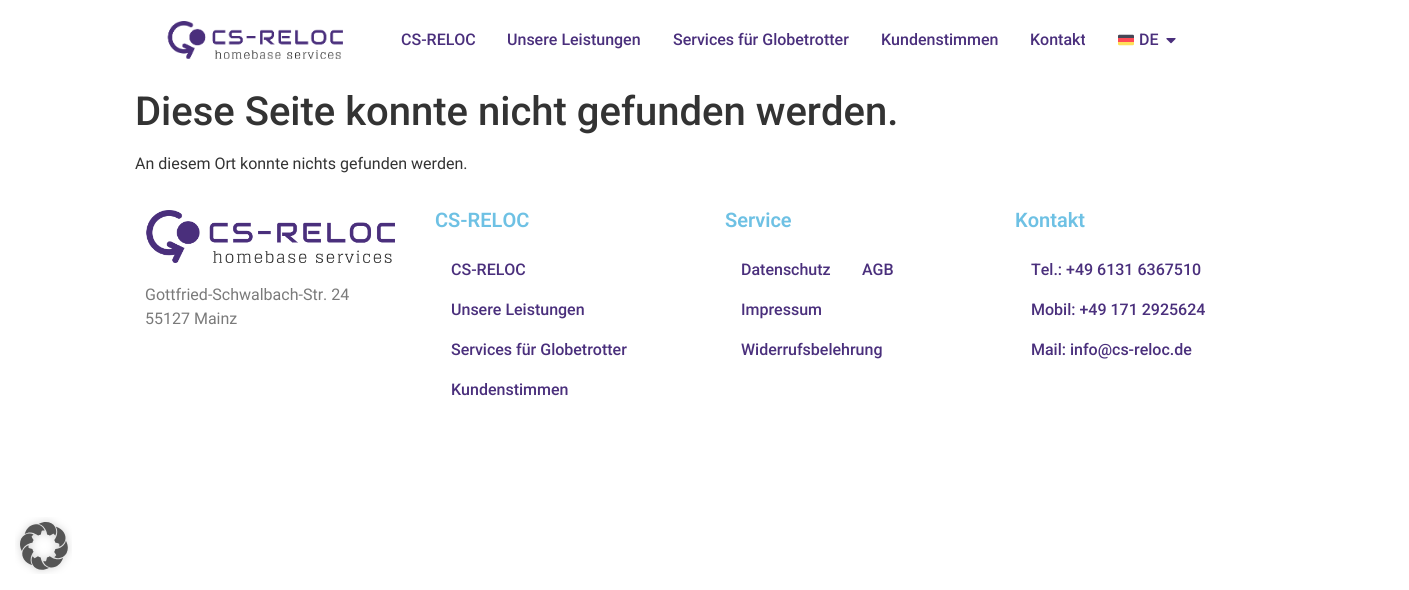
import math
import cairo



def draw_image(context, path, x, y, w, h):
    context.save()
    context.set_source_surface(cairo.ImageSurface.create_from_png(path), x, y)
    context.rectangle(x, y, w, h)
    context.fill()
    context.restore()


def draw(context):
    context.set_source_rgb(1, 1, 1)
    context.paint()
    draw_image(context, "images/1.png", 167, 21, 176, 38)
    draw_image(context, "images/2.png", 1118, 34, 16, 12)
    draw_image(context, "images/3.png", 1166, 38, 10, 6)
    draw_image(context, "images/4.png", 146, 210, 249, 53)
    draw_image(context, "images/5.png", 15, 517, 57, 57)
    context.select_font_face("Roboto Medium")
    context.set_font_size(16)
    context.set_source_rgb(74 / 255, 47 / 255, 124 / 255)
    context.move_to(401, 45)
    context.show_text("CS-RELOC")
    context.move_to(507, 45)
    context.show_text("Unsere Leistungen")
    context.move_to(673, 45)
    context.show_text("Services für Globetrotter")
    context.move_to(881, 45)
    context.show_text("Kundenstimmen")
    context.move_to(1030, 45)
    context.show_text("Kontakt")
    context.move_to(1139, 45)
    context.show_text("DE")
    context.set_font_size(40)
    context.set_source_rgb(51 / 255, 51 / 255, 51 / 255)
    context.move_to(135, 125)
    context.show_text("Diese Seite konnte nicht gefunden werden.")
    context.select_font_face("Roboto")
    context.set_font_size(16)
    context.move_to(135, 169)
    context.show_text("An diesem Ort konnte nichts gefunden werden.")
    context.set_source_rgb(122 / 255, 122 / 255, 122 / 255)
    context.move_to(145, 300)
    context.show_text("Gottfried-Schwalbach-Str. 24")
    context.move_to(145, 324)
    context.show_text("55127 Mainz")
    context.select_font_face("Roboto SemiBold")
    context.set_font_size(20)
    context.set_source_rgb(110 / 255, 193 / 255, 228 / 255)
    context.move_to(435, 227)
    context.show_text("CS-RELOC")
    context.select_font_face("Roboto Medium")
    context.set_font_size(16)
    context.set_source_rgb(74 / 255, 47 / 255, 124 / 255)
    context.move_to(451, 275)
    context.show_text("CS-RELOC")
    context.move_to(451, 315)
    context.show_text("Unsere Leistungen")
    context.move_to(451, 355)
    context.show_text("Services für Globetrotter")
    context.move_to(451, 395)
    context.show_text("Kundenstimmen")
    context.select_font_face("Roboto SemiBold")
    context.set_font_size(20)
    context.set_source_rgb(110 / 255, 193 / 255, 228 / 255)
    context.move_to(725, 227)
    context.show_text("Service")
    context.select_font_face("Roboto Medium")
    context.set_font_size(16)
    context.set_source_rgb(74 / 255, 47 / 255, 124 / 255)
    context.move_to(741, 275)
    context.show_text("Datenschutz")
    context.move_to(862, 275)
    context.show_text("AGB")
    context.move_to(741, 315)
    context.show_text("Impressum")
    context.move_to(741, 355)
    context.show_text("Widerrufsbelehrung")
    context.select_font_face("Roboto SemiBold")
    context.set_font_size(20)
    context.set_source_rgb(110 / 255, 193 / 255, 228 / 255)
    context.move_to(1015, 227)
    context.show_text("Kontakt")
    context.select_font_face("Roboto Medium")
    context.set_font_size(16)
    context.set_source_rgb(74 / 255, 47 / 255, 124 / 255)
    context.move_to(1031, 275)
    context.show_text("Tel.: +49 6131 6367510")
    context.move_to(1031, 315)
    context.show_text("Mobil: +49 171 2925624")
    context.move_to(1031, 355)
    context.show_text("Mail: info@cs-reloc.de")


surface = cairo.ImageSurface(cairo.Format.RGB24, 1409, 590)
context = cairo.Context(surface)
options = cairo.FontOptions()
options.set_hint_metrics(cairo.HintMetrics.OFF)
options.set_hint_style(cairo.HintStyle.NONE)
context.set_font_options(options)
context.set_miter_limit(4)
draw(context)
surface.write_to_png("out.png")
